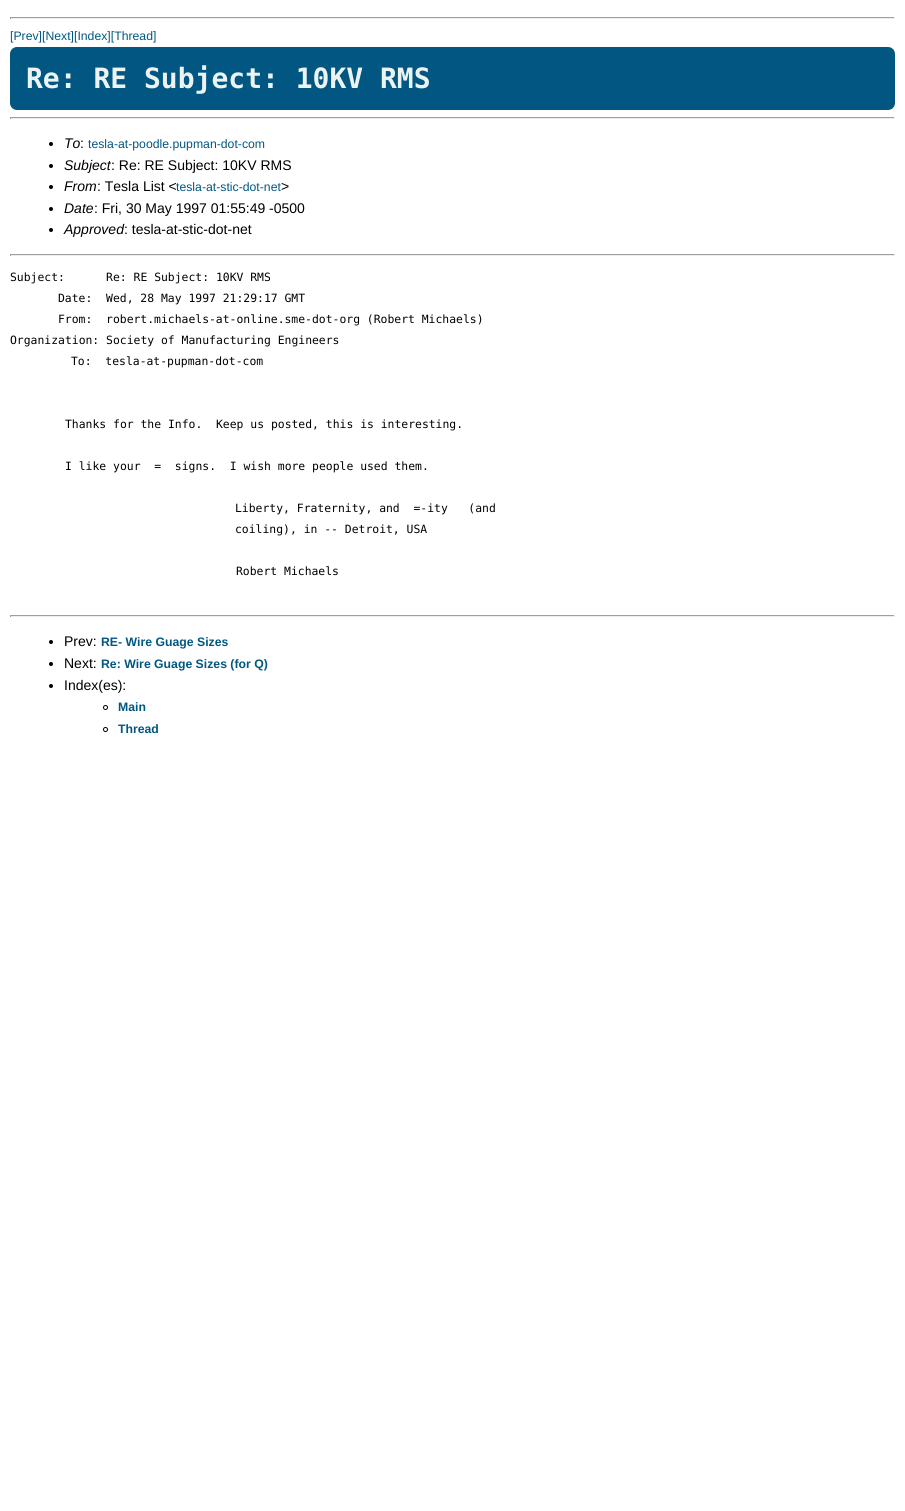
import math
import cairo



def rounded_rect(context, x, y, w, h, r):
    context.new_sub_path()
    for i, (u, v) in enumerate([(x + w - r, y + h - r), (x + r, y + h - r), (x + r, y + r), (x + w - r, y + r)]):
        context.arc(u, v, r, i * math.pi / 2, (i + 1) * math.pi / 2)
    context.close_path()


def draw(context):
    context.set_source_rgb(1, 1, 1)
    context.paint()
    context.set_source_rgb(159 / 255, 159 / 255, 159 / 255)
    context.rectangle(10, 17, 885, 1)
    context.fill()
    context.set_source_rgb(238 / 255, 238 / 255, 238 / 255)
    context.rectangle(894, 17, 1, 2)
    context.fill()
    context.rectangle(10, 18, 885, 1)
    context.fill()
    context.set_source_rgb(159 / 255, 159 / 255, 159 / 255)
    context.rectangle(10, 17, 1, 2)
    context.fill()
    context.set_source_rgb(1 / 255, 87 / 255, 130 / 255)
    rounded_rect(context, 10, 47, 885, 63, 7)
    context.fill()
    context.set_source_rgb(159 / 255, 159 / 255, 159 / 255)
    context.rectangle(10, 117, 885, 1)
    context.fill()
    context.set_source_rgb(238 / 255, 238 / 255, 238 / 255)
    context.rectangle(894, 117, 1, 2)
    context.fill()
    context.rectangle(10, 118, 885, 1)
    context.fill()
    context.set_source_rgb(159 / 255, 159 / 255, 159 / 255)
    context.rectangle(10, 117, 1, 2)
    context.fill()
    context.set_source_rgb(0, 0, 0)
    context.arc(51, 144, 2, 0, 2 * math.pi)
    context.fill()
    context.arc(51, 166, 2, 0, 2 * math.pi)
    context.fill()
    context.arc(51, 187, 2, 0, 2 * math.pi)
    context.fill()
    context.arc(51, 209, 2, 0, 2 * math.pi)
    context.fill()
    context.arc(51, 230, 2, 0, 2 * math.pi)
    context.fill()
    context.set_source_rgb(159 / 255, 159 / 255, 159 / 255)
    context.rectangle(10, 254, 885, 1)
    context.fill()
    context.set_source_rgb(238 / 255, 238 / 255, 238 / 255)
    context.rectangle(894, 254, 1, 2)
    context.fill()
    context.rectangle(10, 255, 885, 1)
    context.fill()
    context.set_source_rgb(159 / 255, 159 / 255, 159 / 255)
    context.rectangle(10, 254, 1, 2)
    context.fill()
    context.rectangle(10, 615, 885, 1)
    context.fill()
    context.set_source_rgb(238 / 255, 238 / 255, 238 / 255)
    context.rectangle(894, 615, 1, 2)
    context.fill()
    context.rectangle(10, 616, 885, 1)
    context.fill()
    context.set_source_rgb(159 / 255, 159 / 255, 159 / 255)
    context.rectangle(10, 615, 1, 2)
    context.fill()
    context.set_source_rgb(0, 0, 0)
    context.arc(51, 642, 2, 0, 2 * math.pi)
    context.fill()
    context.arc(51, 664, 2, 0, 2 * math.pi)
    context.fill()
    context.arc(51, 686, 2, 0, 2 * math.pi)
    context.fill()
    context.arc(105.5, 707.5, 2, 0, 2 * math.pi)
    context.set_line_width(1)
    context.stroke()
    context.arc(105.5, 729.5, 2, 0, 2 * math.pi)
    context.stroke()
    context.select_font_face("Liberation Sans")
    context.set_font_size(12.25)
    context.set_source_rgb(1 / 255, 87 / 255, 130 / 255)
    context.move_to(10, 40)
    context.show_text("[Prev][Next][Index][Thread]")
    context.select_font_face("DejaVu Sans Mono", cairo.FontSlant.NORMAL, cairo.FontWeight.BOLD)
    context.set_font_size(28)
    context.set_source_rgb(236 / 255, 243 / 255, 243 / 255)
    context.move_to(26, 88)
    context.show_text("Re: RE Subject: 10KV RMS")
    context.select_font_face("Liberation Sans", cairo.FontSlant.ITALIC)
    context.set_font_size(14)
    context.set_source_rgb(0, 0, 0)
    context.move_to(64, 148)
    context.show_text("To")
    context.select_font_face("Liberation Sans")
    context.move_to(80, 148)
    context.show_text(":")
    context.set_font_size(12.25)
    context.set_source_rgb(1 / 255, 87 / 255, 130 / 255)
    context.move_to(88, 148)
    context.show_text("tesla-at-poodle.pupman-dot-com")
    context.select_font_face("Liberation Sans", cairo.FontSlant.ITALIC)
    context.set_font_size(14)
    context.set_source_rgb(0, 0, 0)
    context.move_to(64, 170)
    context.show_text("Subject")
    context.select_font_face("Liberation Sans")
    context.move_to(111, 170)
    context.show_text(": Re: RE Subject: 10KV RMS")
    context.select_font_face("Liberation Sans", cairo.FontSlant.ITALIC)
    context.move_to(64, 191)
    context.show_text("From")
    context.select_font_face("Liberation Sans")
    context.move_to(97, 191)
    context.show_text(": Tesla List <")
    context.set_font_size(12.25)
    context.set_source_rgb(1 / 255, 87 / 255, 130 / 255)
    context.move_to(176, 191)
    context.show_text("tesla-at-stic-dot-net")
    context.set_font_size(14)
    context.set_source_rgb(0, 0, 0)
    context.move_to(281, 191)
    context.show_text(">")
    context.select_font_face("Liberation Sans", cairo.FontSlant.ITALIC)
    context.move_to(64, 213)
    context.show_text("Date")
    context.select_font_face("Liberation Sans")
    context.move_to(94, 213)
    context.show_text(": Fri, 30 May 1997 01:55:49 -0500")
    context.select_font_face("Liberation Sans", cairo.FontSlant.ITALIC)
    context.move_to(64, 234)
    context.show_text("Approved")
    context.select_font_face("Liberation Sans")
    context.move_to(124, 234)
    context.show_text(": tesla-at-stic-dot-net")
    context.select_font_face("DejaVu Sans Mono")
    context.set_font_size(11.4)
    context.move_to(10, 281)
    context.show_text("Subject:      Re: RE Subject: 10KV RMS")
    context.move_to(58, 302)
    context.show_text("Date:  Wed, 28 May 1997 21:29:17 GMT")
    context.move_to(58, 323)
    context.show_text("From:  robert.michaels-at-online.sme-dot-org (Robert Michaels)")
    context.move_to(10, 344)
    context.show_text("Organization: Society of Manufacturing Engineers")
    context.move_to(71, 365)
    context.show_text("To:  tesla-at-pupman-dot-com")
    context.move_to(65, 428)
    context.show_text("Thanks for the Info.  Keep us posted, this is interesting.")
    context.move_to(65, 470)
    context.show_text("I like your  =  signs.  I wish more people used them.")
    context.move_to(235, 512)
    context.show_text("Liberty, Fraternity, and  =-ity   (and")
    context.move_to(235, 533)
    context.show_text("coiling), in -- Detroit, USA")
    context.move_to(236, 575)
    context.show_text("Robert Michaels")
    context.select_font_face("Liberation Sans")
    context.set_font_size(14)
    context.move_to(64, 646)
    context.show_text("Prev:")
    context.select_font_face("Liberation Sans", cairo.FontSlant.NORMAL, cairo.FontWeight.BOLD)
    context.set_font_size(12.25)
    context.set_source_rgb(1 / 255, 87 / 255, 130 / 255)
    context.move_to(101, 646)
    context.show_text("RE- Wire Guage Sizes")
    context.select_font_face("Liberation Sans")
    context.set_font_size(14)
    context.set_source_rgb(0, 0, 0)
    context.move_to(64, 668)
    context.show_text("Next:")
    context.select_font_face("Liberation Sans", cairo.FontSlant.NORMAL, cairo.FontWeight.BOLD)
    context.set_font_size(12.25)
    context.set_source_rgb(1 / 255, 87 / 255, 130 / 255)
    context.move_to(101, 668)
    context.show_text("Re: Wire Guage Sizes (for Q)")
    context.select_font_face("Liberation Sans")
    context.set_font_size(14)
    context.set_source_rgb(0, 0, 0)
    context.move_to(64, 690)
    context.show_text("Index(es):")
    context.select_font_face("Liberation Sans", cairo.FontSlant.NORMAL, cairo.FontWeight.BOLD)
    context.set_font_size(12.25)
    context.set_source_rgb(1 / 255, 87 / 255, 130 / 255)
    context.move_to(118, 711)
    context.show_text("Main")
    context.move_to(118, 733)
    context.show_text("Thread")


surface = cairo.ImageSurface(cairo.Format.RGB24, 905, 1511)
context = cairo.Context(surface)
options = cairo.FontOptions()
options.set_hint_metrics(cairo.HintMetrics.OFF)
options.set_hint_style(cairo.HintStyle.NONE)
context.set_font_options(options)
context.set_miter_limit(4)
draw(context)
surface.write_to_png("out.png")
